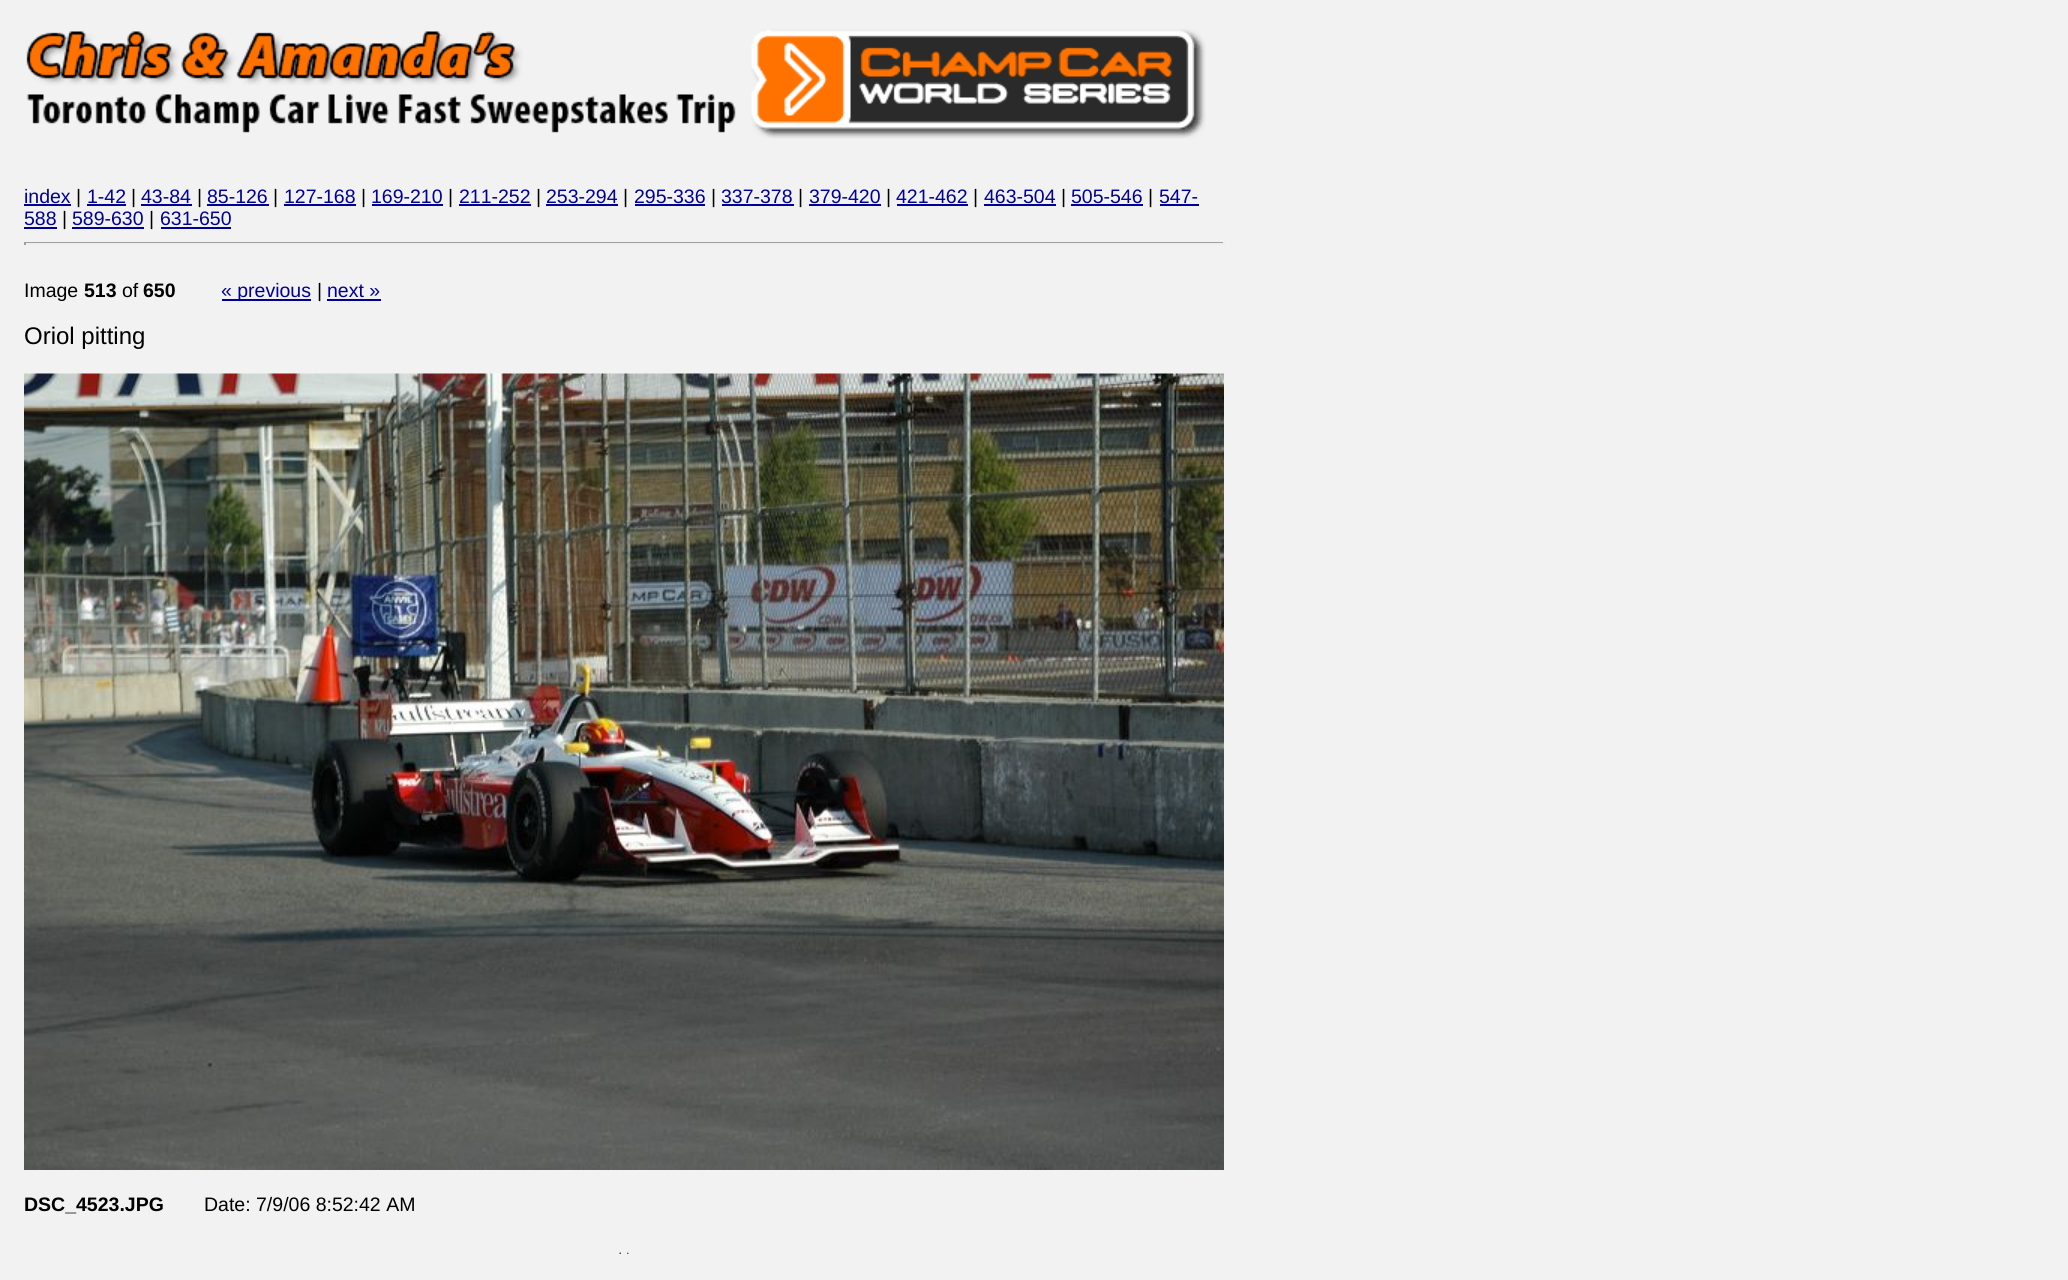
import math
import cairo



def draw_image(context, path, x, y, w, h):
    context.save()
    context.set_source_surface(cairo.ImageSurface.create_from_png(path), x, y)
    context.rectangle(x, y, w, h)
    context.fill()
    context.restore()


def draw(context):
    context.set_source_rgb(242 / 255, 242 / 255, 242 / 255)
    context.paint()
    draw_image(context, "images/1.png", 26, 29, 1180, 110)
    context.set_source_rgb(0, 0, 153 / 255)
    context.rectangle(24, 204, 47, 2)
    context.fill()
    context.rectangle(87, 204, 39, 2)
    context.fill()
    context.rectangle(141, 204, 51, 2)
    context.fill()
    context.rectangle(207, 204, 62, 2)
    context.fill()
    context.rectangle(284, 204, 72, 2)
    context.fill()
    context.rectangle(372, 204, 71, 2)
    context.fill()
    context.rectangle(459, 204, 72, 2)
    context.fill()
    context.rectangle(546, 204, 72, 2)
    context.fill()
    context.rectangle(635, 204, 70, 2)
    context.fill()
    context.rectangle(722, 204, 72, 2)
    context.fill()
    context.rectangle(809, 204, 72, 2)
    context.fill()
    context.rectangle(897, 204, 71, 2)
    context.fill()
    context.rectangle(984, 204, 72, 2)
    context.fill()
    context.rectangle(1071, 204, 72, 2)
    context.fill()
    context.rectangle(1160, 204, 39, 2)
    context.fill()
    context.rectangle(24, 227, 33, 2)
    context.fill()
    context.rectangle(72, 227, 72, 2)
    context.fill()
    context.rectangle(161, 227, 70, 2)
    context.fill()
    context.set_source_rgb(159 / 255, 159 / 255, 159 / 255)
    context.rectangle(24, 242, 1200, 1)
    context.fill()
    context.set_source_rgb(238 / 255, 238 / 255, 238 / 255)
    context.rectangle(1223, 242, 2, 3)
    context.fill()
    context.rectangle(24, 243, 1200, 2)
    context.fill()
    context.set_source_rgb(159 / 255, 159 / 255, 159 / 255)
    context.rectangle(24, 242, 2, 3)
    context.fill()
    context.set_source_rgb(0, 0, 153 / 255)
    context.rectangle(222, 299, 89, 2)
    context.fill()
    context.rectangle(327, 299, 54, 2)
    context.fill()
    draw_image(context, "images/2.png", 24, 373, 1200, 797)
    draw_image(context, "images/3.png", 619, 1252, 2, 2)
    draw_image(context, "images/4.png", 627, 1252, 2, 2)
    context.select_font_face("Liberation Sans")
    context.set_font_size(19.5)
    context.move_to(24, 203)
    context.show_text("index")
    context.set_source_rgb(0, 0, 0)
    context.move_to(76, 203)
    context.show_text("|")
    context.set_source_rgb(0, 0, 153 / 255)
    context.move_to(87, 203)
    context.show_text("1-42")
    context.set_source_rgb(0, 0, 0)
    context.move_to(131, 203)
    context.show_text("|")
    context.set_source_rgb(0, 0, 153 / 255)
    context.move_to(141, 203)
    context.show_text("43-84")
    context.set_source_rgb(0, 0, 0)
    context.move_to(197, 203)
    context.show_text("|")
    context.set_source_rgb(0, 0, 153 / 255)
    context.move_to(207, 203)
    context.show_text("85-126")
    context.set_source_rgb(0, 0, 0)
    context.move_to(273, 203)
    context.show_text("|")
    context.set_source_rgb(0, 0, 153 / 255)
    context.move_to(284, 203)
    context.show_text("127-168")
    context.set_source_rgb(0, 0, 0)
    context.move_to(361, 203)
    context.show_text("|")
    context.set_source_rgb(0, 0, 153 / 255)
    context.move_to(371, 203)
    context.show_text("169-210")
    context.set_source_rgb(0, 0, 0)
    context.move_to(448, 203)
    context.show_text("|")
    context.set_source_rgb(0, 0, 153 / 255)
    context.move_to(459, 203)
    context.show_text("211-252")
    context.set_source_rgb(0, 0, 0)
    context.move_to(536, 203)
    context.show_text("|")
    context.set_source_rgb(0, 0, 153 / 255)
    context.move_to(546, 203)
    context.show_text("253-294")
    context.set_source_rgb(0, 0, 0)
    context.move_to(623, 203)
    context.show_text("|")
    context.set_source_rgb(0, 0, 153 / 255)
    context.move_to(634, 203)
    context.show_text("295-336")
    context.set_source_rgb(0, 0, 0)
    context.move_to(711, 203)
    context.show_text("|")
    context.set_source_rgb(0, 0, 153 / 255)
    context.move_to(721, 203)
    context.show_text("337-378")
    context.set_source_rgb(0, 0, 0)
    context.move_to(798, 203)
    context.show_text("|")
    context.set_source_rgb(0, 0, 153 / 255)
    context.move_to(809, 203)
    context.show_text("379-420")
    context.set_source_rgb(0, 0, 0)
    context.move_to(886, 203)
    context.show_text("|")
    context.set_source_rgb(0, 0, 153 / 255)
    context.move_to(896, 203)
    context.show_text("421-462")
    context.set_source_rgb(0, 0, 0)
    context.move_to(973, 203)
    context.show_text("|")
    context.set_source_rgb(0, 0, 153 / 255)
    context.move_to(984, 203)
    context.show_text("463-504")
    context.set_source_rgb(0, 0, 0)
    context.move_to(1061, 203)
    context.show_text("|")
    context.set_source_rgb(0, 0, 153 / 255)
    context.move_to(1071, 203)
    context.show_text("505-546")
    context.set_source_rgb(0, 0, 0)
    context.move_to(1148, 203)
    context.show_text("|")
    context.set_source_rgb(0, 0, 153 / 255)
    context.move_to(1159, 203)
    context.show_text("547-")
    context.move_to(24, 225)
    context.show_text("588")
    context.set_source_rgb(0, 0, 0)
    context.move_to(62, 225)
    context.show_text("|")
    context.set_source_rgb(0, 0, 153 / 255)
    context.move_to(72, 225)
    context.show_text("589-630")
    context.set_source_rgb(0, 0, 0)
    context.move_to(149, 225)
    context.show_text("|")
    context.set_source_rgb(0, 0, 153 / 255)
    context.move_to(160, 225)
    context.show_text("631-650")
    context.set_source_rgb(0, 0, 0)
    context.move_to(24, 297)
    context.show_text("Image")
    context.select_font_face("Liberation Sans", cairo.FontSlant.NORMAL, cairo.FontWeight.BOLD)
    context.move_to(84, 297)
    context.show_text("513")
    context.select_font_face("Liberation Sans")
    context.move_to(122, 297)
    context.show_text("of")
    context.select_font_face("Liberation Sans", cairo.FontSlant.NORMAL, cairo.FontWeight.BOLD)
    context.move_to(143, 297)
    context.show_text("650")
    context.select_font_face("Liberation Sans")
    context.set_source_rgb(0, 0, 153 / 255)
    context.move_to(221, 297)
    context.show_text("« previous")
    context.set_source_rgb(0, 0, 0)
    context.move_to(317, 297)
    context.show_text("|")
    context.set_source_rgb(0, 0, 153 / 255)
    context.move_to(327, 297)
    context.show_text("next »")
    context.set_font_size(24)
    context.set_source_rgb(0, 0, 0)
    context.move_to(24, 344)
    context.show_text("Oriol pitting")
    context.select_font_face("Liberation Sans", cairo.FontSlant.NORMAL, cairo.FontWeight.BOLD)
    context.set_font_size(19.5)
    context.move_to(24, 1211)
    context.show_text("DSC_4523.JPG")
    context.select_font_face("Liberation Sans")
    context.move_to(204, 1211)
    context.show_text("Date: 7/9/06 8:52:42 AM")


surface = cairo.ImageSurface(cairo.Format.RGB24, 2068, 1280)
context = cairo.Context(surface)
options = cairo.FontOptions()
options.set_hint_metrics(cairo.HintMetrics.OFF)
options.set_hint_style(cairo.HintStyle.NONE)
context.set_font_options(options)
context.set_miter_limit(4)
draw(context)
surface.write_to_png("out.png")
